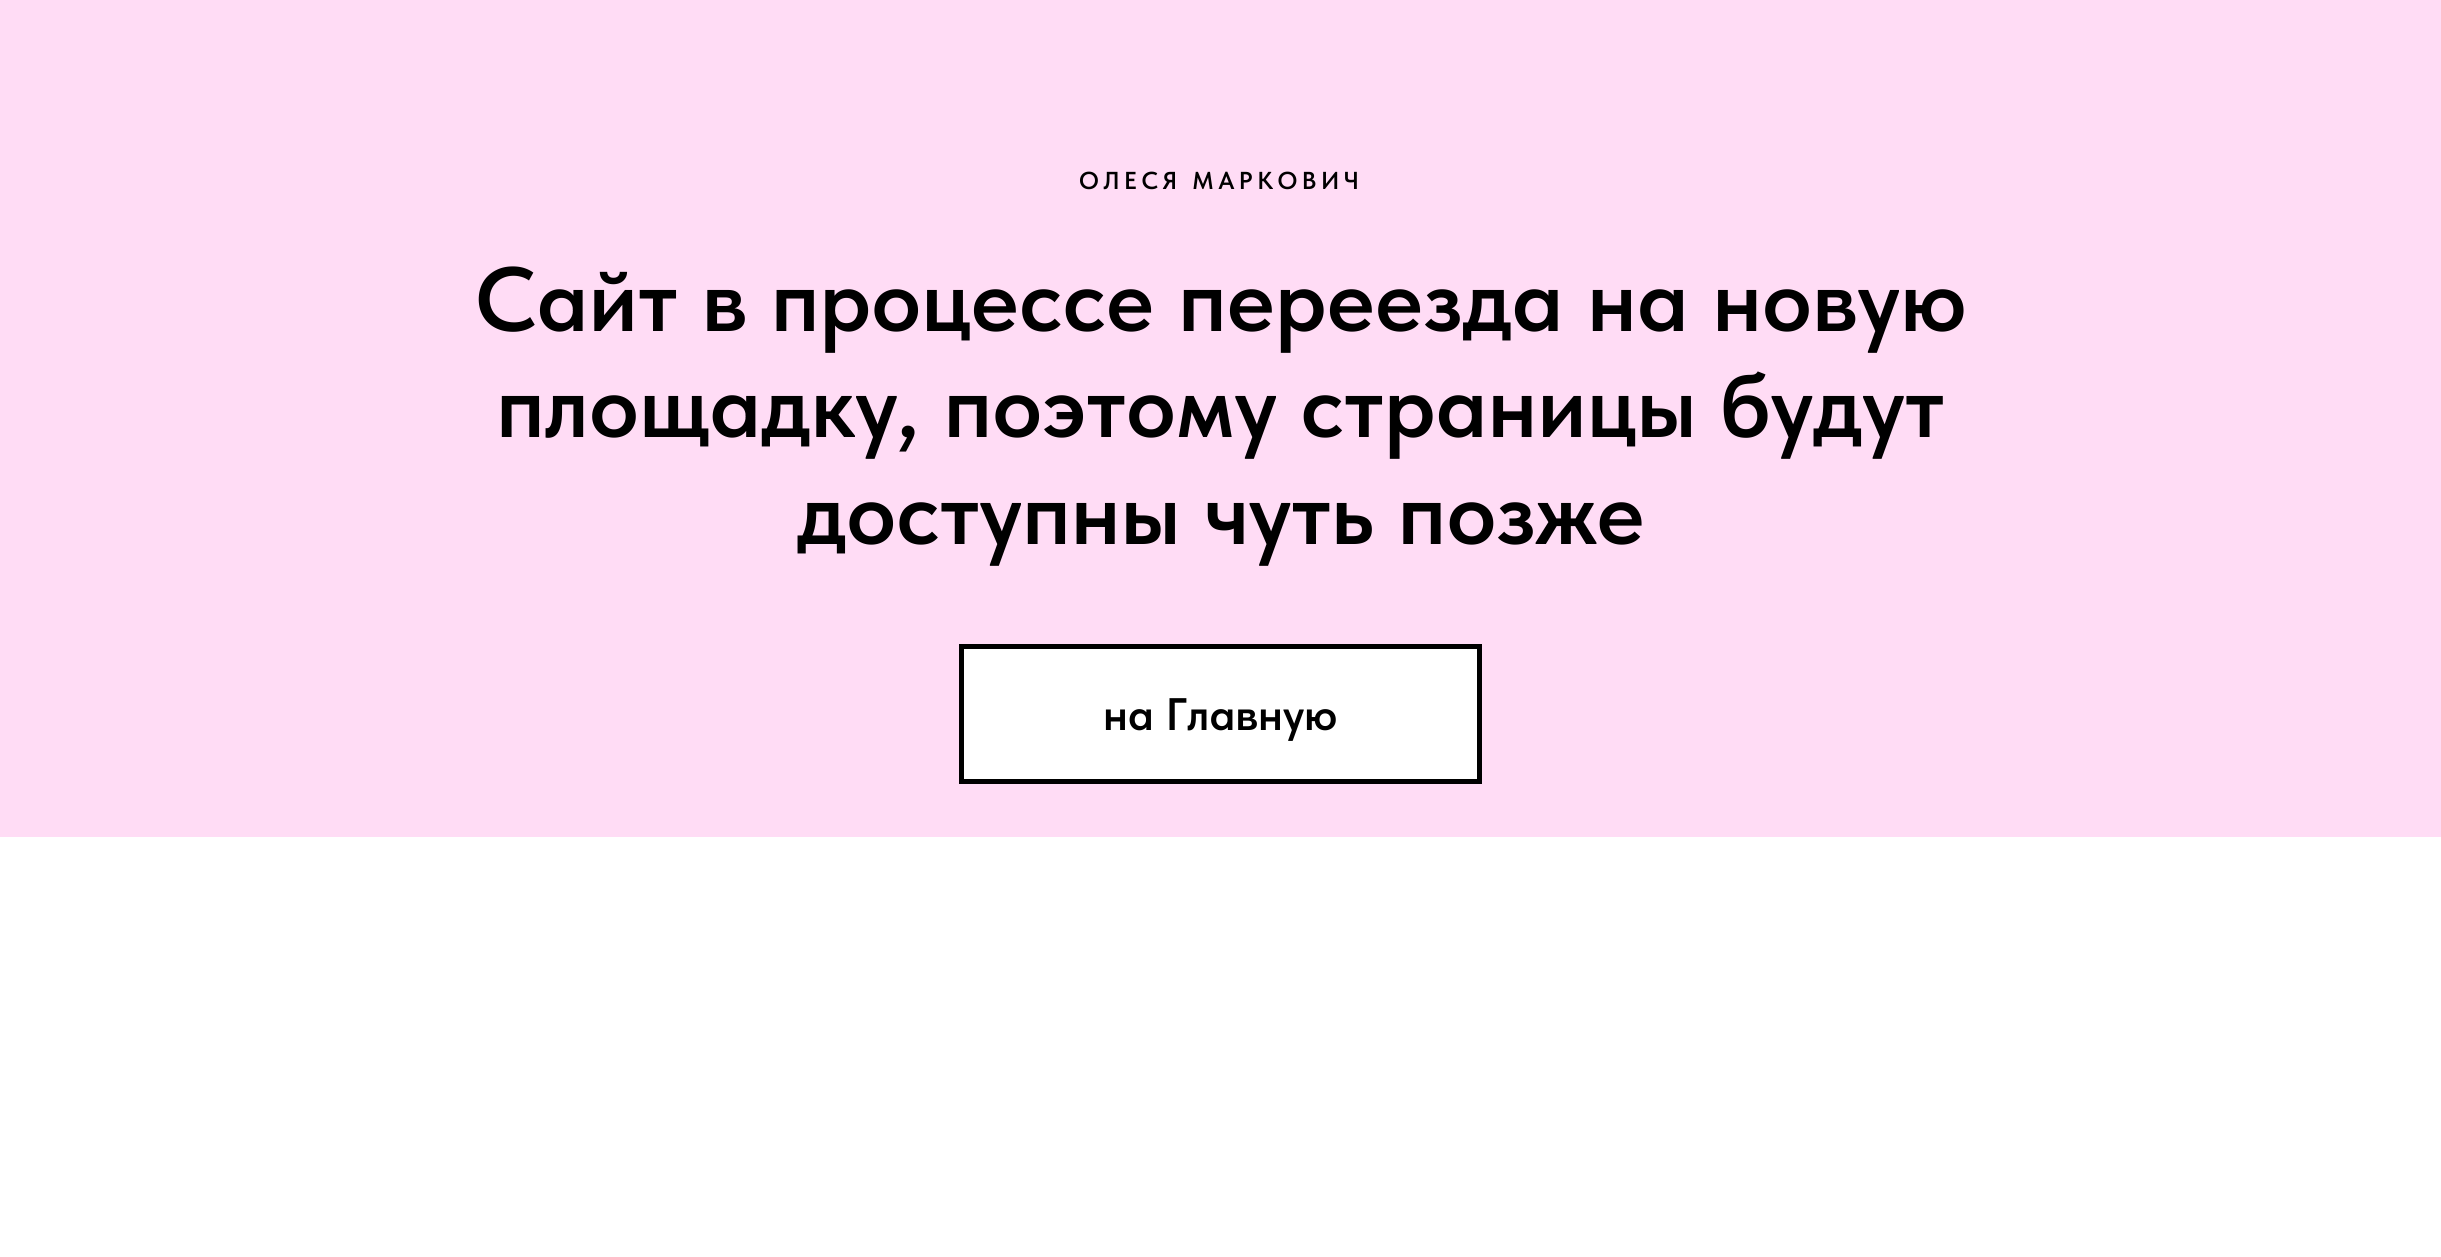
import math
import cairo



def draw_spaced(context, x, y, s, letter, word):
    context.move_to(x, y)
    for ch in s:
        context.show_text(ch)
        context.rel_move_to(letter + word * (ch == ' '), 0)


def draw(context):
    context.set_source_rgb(1, 1, 1)
    context.paint()
    context.set_source_rgb(1, 220 / 255, 245 / 255)
    context.rectangle(0, 0, 2441, 837)
    context.fill()
    context.set_source_rgb(1, 1, 1)
    context.rectangle(961.5, 646.5, 518, 135)
    context.fill_preserve()
    context.set_source_rgb(0, 0, 0)
    context.set_line_width(5)
    context.stroke()
    context.select_font_face("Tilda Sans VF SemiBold")
    context.set_font_size(24.5)
    draw_spaced(context, 1079, 189, "ОЛЕСЯ МАРКОВИЧ", 4.4, 0)
    context.set_font_size(91)
    context.move_to(475, 331)
    context.show_text("Сайт в процессе переезда на новую")
    context.move_to(496, 437)
    context.show_text("площадку, поэтому страницы будут")
    context.move_to(797, 544)
    context.show_text("доступны чуть позже")
    context.set_font_size(45.5)
    context.move_to(1103, 730)
    context.show_text("на Главную")


surface = cairo.ImageSurface(cairo.Format.RGB24, 2441, 1257)
context = cairo.Context(surface)
options = cairo.FontOptions()
options.set_hint_metrics(cairo.HintMetrics.OFF)
options.set_hint_style(cairo.HintStyle.NONE)
context.set_font_options(options)
context.set_miter_limit(4)
draw(context)
surface.write_to_png("out.png")
